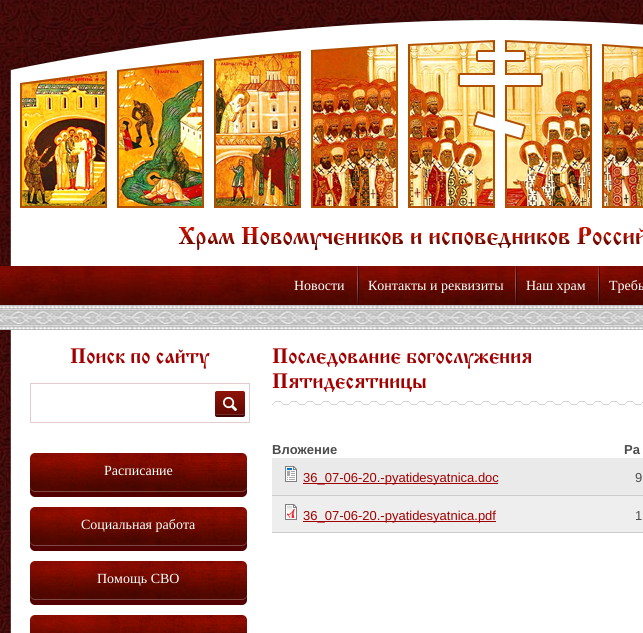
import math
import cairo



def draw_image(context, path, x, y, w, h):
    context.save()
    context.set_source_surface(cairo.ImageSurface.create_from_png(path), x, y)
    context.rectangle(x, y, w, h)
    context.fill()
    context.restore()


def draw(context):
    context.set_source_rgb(1, 1, 1)
    context.paint()
    draw_image(context, "images/1.png", 0, 330, 11, 303)
    draw_image(context, "images/2.png", 0, 0, 643, 266)
    draw_image(context, "images/3.png", 7, 16, 636, 250)
    draw_image(context, "images/4.png", 20, 40, 623, 210)
    draw_image(context, "images/5.png", 0, 266, 643, 39)
    draw_image(context, "images/6.png", 357, 266, 2, 39)
    draw_image(context, "images/6.png", 515, 266, 2, 39)
    draw_image(context, "images/6.png", 598, 266, 2, 39)
    draw_image(context, "images/7.png", 7, 330, 636, 303)
    draw_image(context, "images/8.png", 0, 305, 643, 25)
    context.rectangle(30.5, 383.5, 219, 39)
    context.set_source_rgb(226 / 255, 205 / 255, 204 / 255)
    context.set_line_width(1)
    context.stroke()
    draw_image(context, "images/9.png", 215, 391, 30, 26)
    draw_image(context, "images/10.png", 30, 453, 217, 44)
    draw_image(context, "images/10.png", 30, 507, 217, 44)
    draw_image(context, "images/10.png", 30, 561, 217, 44)
    draw_image(context, "images/11.png", 30, 615, 217, 18)
    draw_image(context, "images/12.png", 272, 401, 371, 4)
    context.set_source_rgb(204 / 255, 204 / 255, 204 / 255)
    context.rectangle(272, 495, 371, 1)
    context.fill()
    context.set_source_rgb(234 / 255, 234 / 255, 234 / 255)
    context.rectangle(272, 458, 371, 37)
    context.fill()
    draw_image(context, "images/13.png", 285, 466, 12, 16)
    context.set_source_rgb(162 / 255, 0, 0)
    context.rectangle(303, 483, 195, 1)
    context.fill()
    context.set_source_rgb(238 / 255, 238 / 255, 238 / 255)
    context.rectangle(272, 496, 371, 36)
    context.fill()
    context.set_source_rgb(204 / 255, 204 / 255, 204 / 255)
    context.rectangle(272, 532, 371, 1)
    context.fill()
    draw_image(context, "images/14.png", 285, 504, 12, 16)
    context.set_source_rgb(162 / 255, 0, 0)
    context.rectangle(303, 521, 193, 1)
    context.fill()
    context.select_font_face("Liberation Serif")
    context.set_font_size(14)
    context.set_source_rgb(1, 1, 1)
    context.move_to(294, 290)
    context.show_text("Новости")
    context.move_to(368, 290)
    context.show_text("Контакты и реквизиты")
    context.move_to(526, 290)
    context.show_text("Наш храм")
    context.move_to(609, 290)
    context.show_text("Требы")
    context.select_font_face("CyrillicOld", cairo.FontSlant.NORMAL, cairo.FontWeight.BOLD)
    context.set_font_size(22)
    context.set_source_rgb(162 / 255, 0, 0)
    context.move_to(70, 363)
    context.show_text("Поиск по сайту")
    context.select_font_face("Liberation Serif")
    context.set_font_size(14)
    context.set_source_rgb(1, 1, 1)
    context.move_to(104, 475)
    context.show_text("Расписание")
    context.move_to(81, 529)
    context.show_text("Социальная работа")
    context.move_to(97, 583)
    context.show_text("Помощь СВО")
    context.select_font_face("CyrillicOld", cairo.FontSlant.NORMAL, cairo.FontWeight.BOLD)
    context.set_font_size(22)
    context.set_source_rgb(162 / 255, 0, 0)
    context.move_to(272, 363)
    context.show_text("Последование богослужения")
    context.move_to(272, 388)
    context.show_text("Пятидесятницы")
    context.select_font_face("Liberation Sans", cairo.FontSlant.NORMAL, cairo.FontWeight.BOLD)
    context.set_font_size(13)
    context.set_source_rgb(77 / 255, 76 / 255, 76 / 255)
    context.move_to(272, 454)
    context.show_text("Вложение")
    context.move_to(624, 454)
    context.show_text("Ра")
    context.select_font_face("Liberation Sans")
    context.set_source_rgb(162 / 255, 0, 0)
    context.move_to(303, 482)
    context.show_text("36_07-06-20.-pyatidesyatnica.doc")
    context.set_source_rgb(77 / 255, 76 / 255, 76 / 255)
    context.move_to(635, 482)
    context.show_text("9")
    context.set_source_rgb(162 / 255, 0, 0)
    context.move_to(303, 520)
    context.show_text("36_07-06-20.-pyatidesyatnica.pdf")
    context.set_source_rgb(77 / 255, 76 / 255, 76 / 255)
    context.move_to(635, 520)
    context.show_text("1")


surface = cairo.ImageSurface(cairo.Format.RGB24, 643, 633)
context = cairo.Context(surface)
options = cairo.FontOptions()
options.set_hint_metrics(cairo.HintMetrics.OFF)
options.set_hint_style(cairo.HintStyle.NONE)
context.set_font_options(options)
context.set_miter_limit(4)
draw(context)
surface.write_to_png("out.png")
